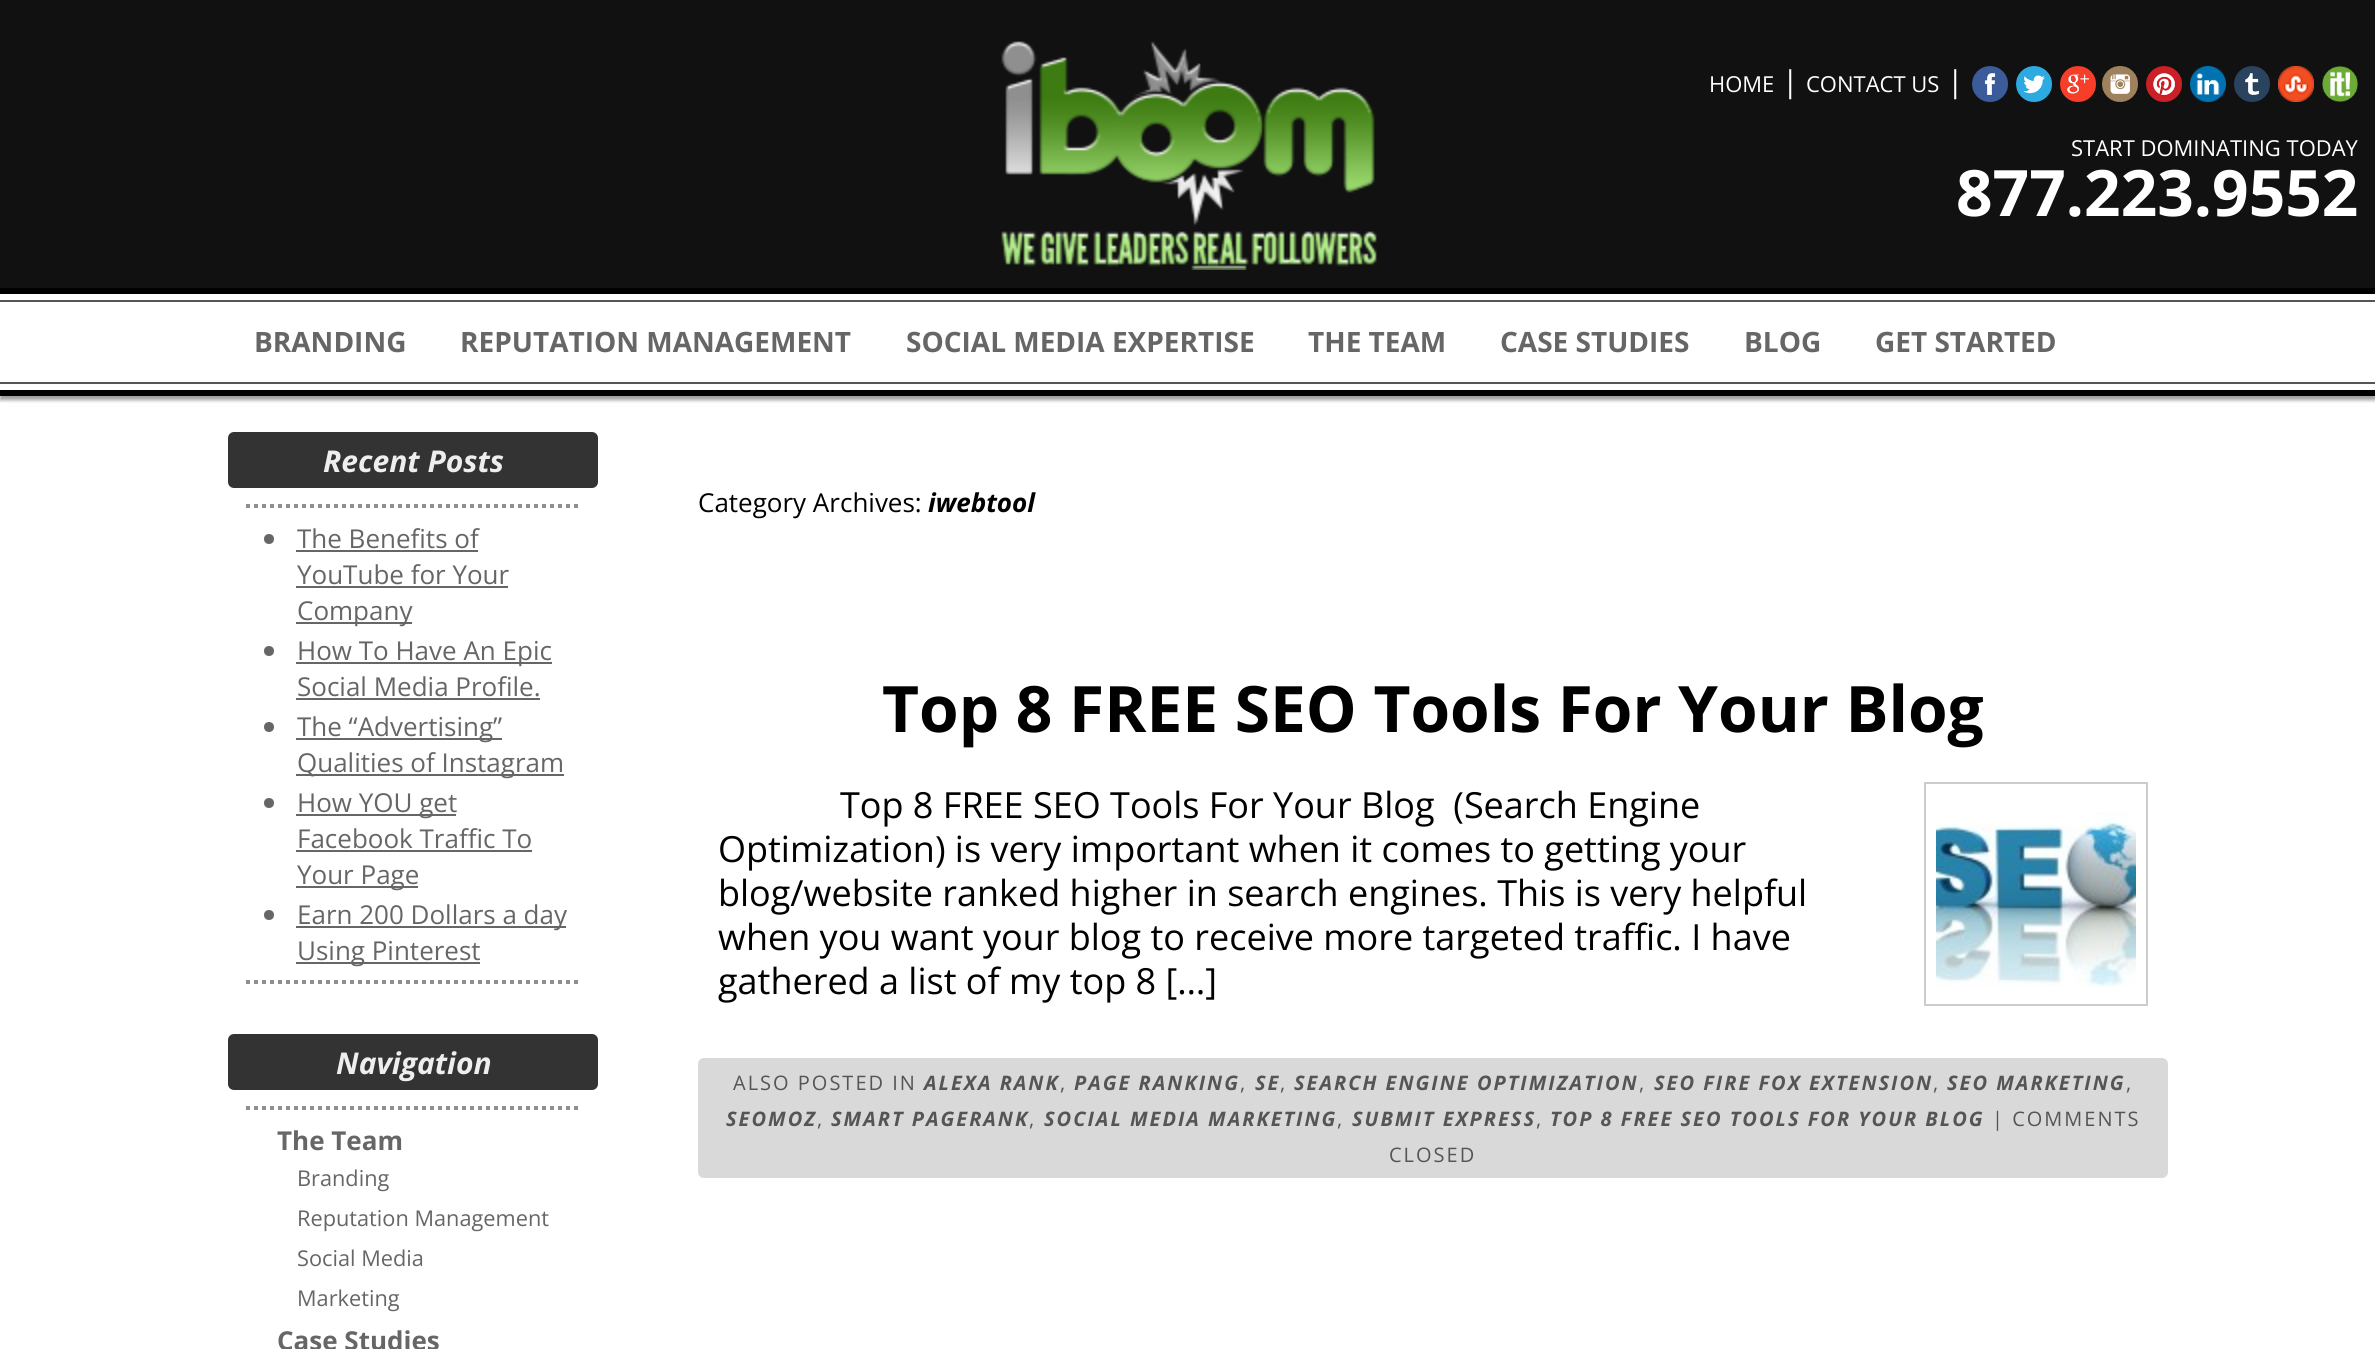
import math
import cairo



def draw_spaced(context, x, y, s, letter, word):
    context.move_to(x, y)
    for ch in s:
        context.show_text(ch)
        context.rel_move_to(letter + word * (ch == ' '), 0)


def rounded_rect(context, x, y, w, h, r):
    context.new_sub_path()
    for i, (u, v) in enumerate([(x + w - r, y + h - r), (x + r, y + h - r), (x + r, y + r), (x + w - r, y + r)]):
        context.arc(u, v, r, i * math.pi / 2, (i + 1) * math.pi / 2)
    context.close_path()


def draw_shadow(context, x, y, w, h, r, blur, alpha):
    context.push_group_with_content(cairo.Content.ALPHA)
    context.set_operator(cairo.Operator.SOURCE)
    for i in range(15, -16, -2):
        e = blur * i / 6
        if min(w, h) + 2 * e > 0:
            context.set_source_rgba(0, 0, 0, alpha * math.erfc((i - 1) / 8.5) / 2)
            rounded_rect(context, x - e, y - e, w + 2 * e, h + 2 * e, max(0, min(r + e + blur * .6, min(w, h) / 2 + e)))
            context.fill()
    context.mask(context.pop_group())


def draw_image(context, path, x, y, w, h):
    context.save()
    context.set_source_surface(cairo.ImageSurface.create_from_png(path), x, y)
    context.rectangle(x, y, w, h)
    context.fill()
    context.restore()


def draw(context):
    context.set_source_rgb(1, 1, 1)
    context.paint()
    context.set_source_rgb(17 / 255, 17 / 255, 17 / 255)
    context.rectangle(0, 0, 2375, 288)
    context.fill()
    draw_image(context, "images/1.png", 1001, 41, 376, 229)
    draw_image(context, "images/2.png", 1972, 66, 36, 36)
    draw_image(context, "images/3.png", 2016, 66, 36, 36)
    draw_image(context, "images/4.png", 2060, 66, 36, 36)
    draw_image(context, "images/5.png", 2102, 66, 36, 36)
    draw_image(context, "images/6.png", 2146, 66, 36, 36)
    draw_image(context, "images/7.png", 2190, 66, 36, 36)
    draw_image(context, "images/8.png", 2234, 66, 36, 36)
    draw_image(context, "images/9.png", 2278, 66, 36, 36)
    draw_image(context, "images/10.png", 2322, 66, 36, 36)
    context.save()
    context.rectangle(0, 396, 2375, 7)
    context.clip()
    context.set_source_rgb(0, 0, 0)
    draw_shadow(context, 0, 292, 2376, 108, 0, 2, 0.4)
    context.restore()
    context.set_source_rgb(0, 0, 0)
    context.rectangle(0, 288, 2375, 6)
    context.fill()
    context.rectangle(0, 390, 2375, 6)
    context.fill()
    context.set_source_rgb(85 / 255, 85 / 255, 85 / 255)
    context.rectangle(0, 300, 2375, 2)
    context.fill()
    context.rectangle(0, 382, 2375, 2)
    context.fill()
    context.set_source_rgb(51 / 255, 51 / 255, 51 / 255)
    rounded_rect(context, 228, 432, 370, 56, 6)
    context.fill()
    context.new_path()
    context.move_to(246, 506)
    context.line_to(580, 506)
    context.set_source_rgb(145 / 255, 142 / 255, 143 / 255)
    context.set_line_width(4)
    context.set_dash([4, 4])
    context.stroke()
    context.new_path()
    context.move_to(246, 982)
    context.line_to(580, 982)
    context.stroke()
    context.set_source_rgb(102 / 255, 102 / 255, 102 / 255)
    context.arc(269, 539, 5, 0, 2 * math.pi)
    context.fill()
    context.rectangle(296, 550, 182, 2)
    context.fill()
    context.rectangle(296, 586, 212, 2)
    context.fill()
    context.rectangle(296, 622, 116, 2)
    context.fill()
    context.arc(269, 651, 5, 0, 2 * math.pi)
    context.fill()
    context.rectangle(296, 662, 256, 2)
    context.fill()
    context.rectangle(296, 698, 244, 2)
    context.fill()
    context.arc(269, 727, 5, 0, 2 * math.pi)
    context.fill()
    context.rectangle(296, 738, 206, 2)
    context.fill()
    context.rectangle(296, 774, 268, 2)
    context.fill()
    context.arc(269, 803, 5, 0, 2 * math.pi)
    context.fill()
    context.rectangle(296, 814, 160, 2)
    context.fill()
    context.rectangle(296, 850, 236, 2)
    context.fill()
    context.rectangle(296, 886, 122, 2)
    context.fill()
    context.arc(269, 915, 5, 0, 2 * math.pi)
    context.fill()
    context.rectangle(296, 926, 270, 2)
    context.fill()
    context.rectangle(296, 962, 184, 2)
    context.fill()
    context.set_source_rgb(51 / 255, 51 / 255, 51 / 255)
    rounded_rect(context, 228, 1034, 370, 56, 6)
    context.fill()
    context.new_path()
    context.move_to(246, 1108)
    context.line_to(580, 1108)
    context.set_source_rgb(145 / 255, 142 / 255, 143 / 255)
    context.stroke()
    context.rectangle(1925, 783, 222, 222)
    context.set_source_rgb(204 / 255, 204 / 255, 204 / 255)
    context.set_line_width(2)
    context.set_dash([])
    context.stroke()
    draw_image(context, "images/11.png", 1936, 812, 200, 175)
    context.set_source_rgb(217 / 255, 217 / 255, 217 / 255)
    rounded_rect(context, 698, 1058, 1470, 120, 6)
    context.fill()
    context.select_font_face("Open Sans")
    context.set_font_size(22)
    context.set_source_rgb(1, 1, 1)
    context.move_to(1709, 92)
    context.show_text("HOME")
    context.set_font_size(30)
    context.move_to(1782, 92)
    context.show_text("|")
    context.set_font_size(22)
    context.move_to(1806, 92)
    context.show_text("CONTACT US")
    context.set_font_size(30)
    context.move_to(1947, 92)
    context.show_text("|")
    context.set_font_size(22)
    context.move_to(2071, 156)
    context.show_text("START DOMINATING TODAY")
    context.select_font_face("Open Sans", cairo.FontSlant.NORMAL, cairo.FontWeight.BOLD)
    context.set_font_size(64)
    context.move_to(1956, 216)
    context.show_text("877.223.9552")
    context.set_font_size(28)
    context.set_source_rgb(102 / 255, 102 / 255, 102 / 255)
    context.move_to(254, 352)
    context.show_text("BRANDING")
    context.move_to(460, 352)
    context.show_text("REPUTATION MANAGEMENT")
    context.move_to(906, 352)
    context.show_text("SOCIAL MEDIA EXPERTISE")
    context.move_to(1308, 352)
    context.show_text("THE TEAM")
    context.move_to(1500, 352)
    context.show_text("CASE STUDIES")
    context.move_to(1744, 352)
    context.show_text("BLOG")
    context.move_to(1875, 352)
    context.show_text("GET STARTED")
    context.select_font_face("Open Sans", cairo.FontSlant.ITALIC, cairo.FontWeight.BOLD)
    context.set_font_size(30)
    context.set_source_rgb(238 / 255, 238 / 255, 238 / 255)
    context.move_to(323, 472)
    context.show_text("Recent Posts")
    context.select_font_face("Open Sans")
    context.set_font_size(26)
    context.set_source_rgb(102 / 255, 102 / 255, 102 / 255)
    context.move_to(297, 548)
    context.show_text("The Benefits of")
    context.move_to(297, 584)
    context.show_text("YouTube for Your")
    context.move_to(297, 620)
    context.show_text("Company")
    context.move_to(297, 660)
    context.show_text("How To Have An Epic")
    context.move_to(297, 696)
    context.show_text("Social Media Profile.")
    context.move_to(297, 736)
    context.show_text("The “Advertising”")
    context.move_to(297, 772)
    context.show_text("Qualities of Instagram")
    context.move_to(297, 812)
    context.show_text("How YOU get")
    context.move_to(297, 848)
    context.show_text("Facebook Traffic To")
    context.move_to(297, 884)
    context.show_text("Your Page")
    context.move_to(297, 924)
    context.show_text("Earn 200 Dollars a day")
    context.move_to(297, 960)
    context.show_text("Using Pinterest")
    context.select_font_face("Open Sans", cairo.FontSlant.ITALIC, cairo.FontWeight.BOLD)
    context.set_font_size(30)
    context.set_source_rgb(238 / 255, 238 / 255, 238 / 255)
    context.move_to(336, 1074)
    context.show_text("Navigation")
    context.select_font_face("Open Sans", cairo.FontSlant.NORMAL, cairo.FontWeight.BOLD)
    context.set_font_size(26)
    context.set_source_rgb(102 / 255, 102 / 255, 102 / 255)
    context.move_to(277, 1150)
    context.show_text("The Team")
    context.select_font_face("Open Sans")
    context.set_font_size(21.75)
    context.move_to(297, 1186)
    context.show_text("Branding")
    context.move_to(297, 1226)
    context.show_text("Reputation Management")
    context.move_to(297, 1266)
    context.show_text("Social Media")
    context.move_to(297, 1306)
    context.show_text("Marketing")
    context.select_font_face("Open Sans", cairo.FontSlant.NORMAL, cairo.FontWeight.BOLD)
    context.set_font_size(26)
    context.move_to(277, 1350)
    context.show_text("Case Studies")
    context.select_font_face("Open Sans")
    context.set_source_rgb(0, 0, 0)
    context.move_to(698, 512)
    context.show_text("Category Archives:")
    context.select_font_face("Open Sans", cairo.FontSlant.ITALIC, cairo.FontWeight.BOLD)
    context.move_to(928, 512)
    context.show_text("iwebtool")
    context.select_font_face("Open Sans", cairo.FontSlant.NORMAL, cairo.FontWeight.BOLD)
    context.set_font_size(64)
    context.move_to(882, 732)
    context.show_text("Top 8 FREE SEO Tools For Your Blog")
    context.select_font_face("Open Sans")
    context.set_font_size(36)
    context.move_to(840, 818)
    context.show_text("Top 8 FREE SEO Tools For Your Blog  (Search Engine")
    context.move_to(718, 862)
    context.show_text("Optimization) is very important when it comes to getting your")
    context.move_to(718, 906)
    context.show_text("blog/website ranked higher in search engines. This is very helpful")
    context.move_to(718, 950)
    context.show_text("when you want your blog to receive more targeted traffic. I have")
    context.move_to(718, 994)
    context.show_text("gathered a list of my top 8 […]")
    context.set_font_size(20)
    context.set_source_rgb(85 / 255, 85 / 255, 85 / 255)
    draw_spaced(context, 733, 1090, "ALSO POSTED IN", 2, 0)
    context.select_font_face("Open Sans", cairo.FontSlant.ITALIC, cairo.FontWeight.BOLD)
    draw_spaced(context, 924, 1090, "ALEXA RANK", 2, 0)
    context.select_font_face("Open Sans")
    draw_spaced(context, 1060, 1090, ",", 2, 0)
    context.select_font_face("Open Sans", cairo.FontSlant.ITALIC, cairo.FontWeight.BOLD)
    draw_spaced(context, 1074, 1090, "PAGE RANKING", 2, 0)
    context.select_font_face("Open Sans")
    draw_spaced(context, 1240, 1090, ",", 2, 0)
    context.select_font_face("Open Sans", cairo.FontSlant.ITALIC, cairo.FontWeight.BOLD)
    draw_spaced(context, 1255, 1090, "SE", 2, 0)
    context.select_font_face("Open Sans")
    draw_spaced(context, 1280, 1090, ",", 2, 0)
    context.select_font_face("Open Sans", cairo.FontSlant.ITALIC, cairo.FontWeight.BOLD)
    draw_spaced(context, 1294, 1090, "SEARCH ENGINE OPTIMIZATION", 2, 0)
    context.select_font_face("Open Sans")
    draw_spaced(context, 1639, 1090, ",", 2, 0)
    context.select_font_face("Open Sans", cairo.FontSlant.ITALIC, cairo.FontWeight.BOLD)
    draw_spaced(context, 1654, 1090, "SEO FIRE FOX EXTENSION", 2, 0)
    context.select_font_face("Open Sans")
    draw_spaced(context, 1933, 1090, ",", 2, 0)
    context.select_font_face("Open Sans", cairo.FontSlant.ITALIC, cairo.FontWeight.BOLD)
    draw_spaced(context, 1947, 1090, "SEO MARKETING", 2, 0)
    context.select_font_face("Open Sans")
    draw_spaced(context, 2126, 1090, ",", 2, 0)
    context.select_font_face("Open Sans", cairo.FontSlant.ITALIC, cairo.FontWeight.BOLD)
    draw_spaced(context, 726, 1126, "SEOMOZ", 2, 0)
    context.select_font_face("Open Sans")
    draw_spaced(context, 817, 1126, ",", 2, 0)
    context.select_font_face("Open Sans", cairo.FontSlant.ITALIC, cairo.FontWeight.BOLD)
    draw_spaced(context, 831, 1126, "SMART PAGERANK", 2, 0)
    context.select_font_face("Open Sans")
    draw_spaced(context, 1029, 1126, ",", 2, 0)
    context.select_font_face("Open Sans", cairo.FontSlant.ITALIC, cairo.FontWeight.BOLD)
    draw_spaced(context, 1044, 1126, "SOCIAL MEDIA MARKETING", 2, 0)
    context.select_font_face("Open Sans")
    draw_spaced(context, 1337, 1126, ",", 2, 0)
    context.select_font_face("Open Sans", cairo.FontSlant.ITALIC, cairo.FontWeight.BOLD)
    draw_spaced(context, 1352, 1126, "SUBMIT EXPRESS", 2, 0)
    context.select_font_face("Open Sans")
    draw_spaced(context, 1536, 1126, ",", 2, 0)
    context.select_font_face("Open Sans", cairo.FontSlant.ITALIC, cairo.FontWeight.BOLD)
    draw_spaced(context, 1550, 1126, "TOP 8 FREE SEO TOOLS FOR YOUR BLOG", 2, 0)
    context.select_font_face("Open Sans")
    draw_spaced(context, 1992, 1126, "| COMMENTS", 2, 0)
    draw_spaced(context, 1389, 1162, "CLOSED", 2, 0)


surface = cairo.ImageSurface(cairo.Format.RGB24, 2375, 1349)
context = cairo.Context(surface)
options = cairo.FontOptions()
options.set_hint_metrics(cairo.HintMetrics.OFF)
options.set_hint_style(cairo.HintStyle.NONE)
context.set_font_options(options)
context.set_miter_limit(4)
draw(context)
surface.write_to_png("out.png")
